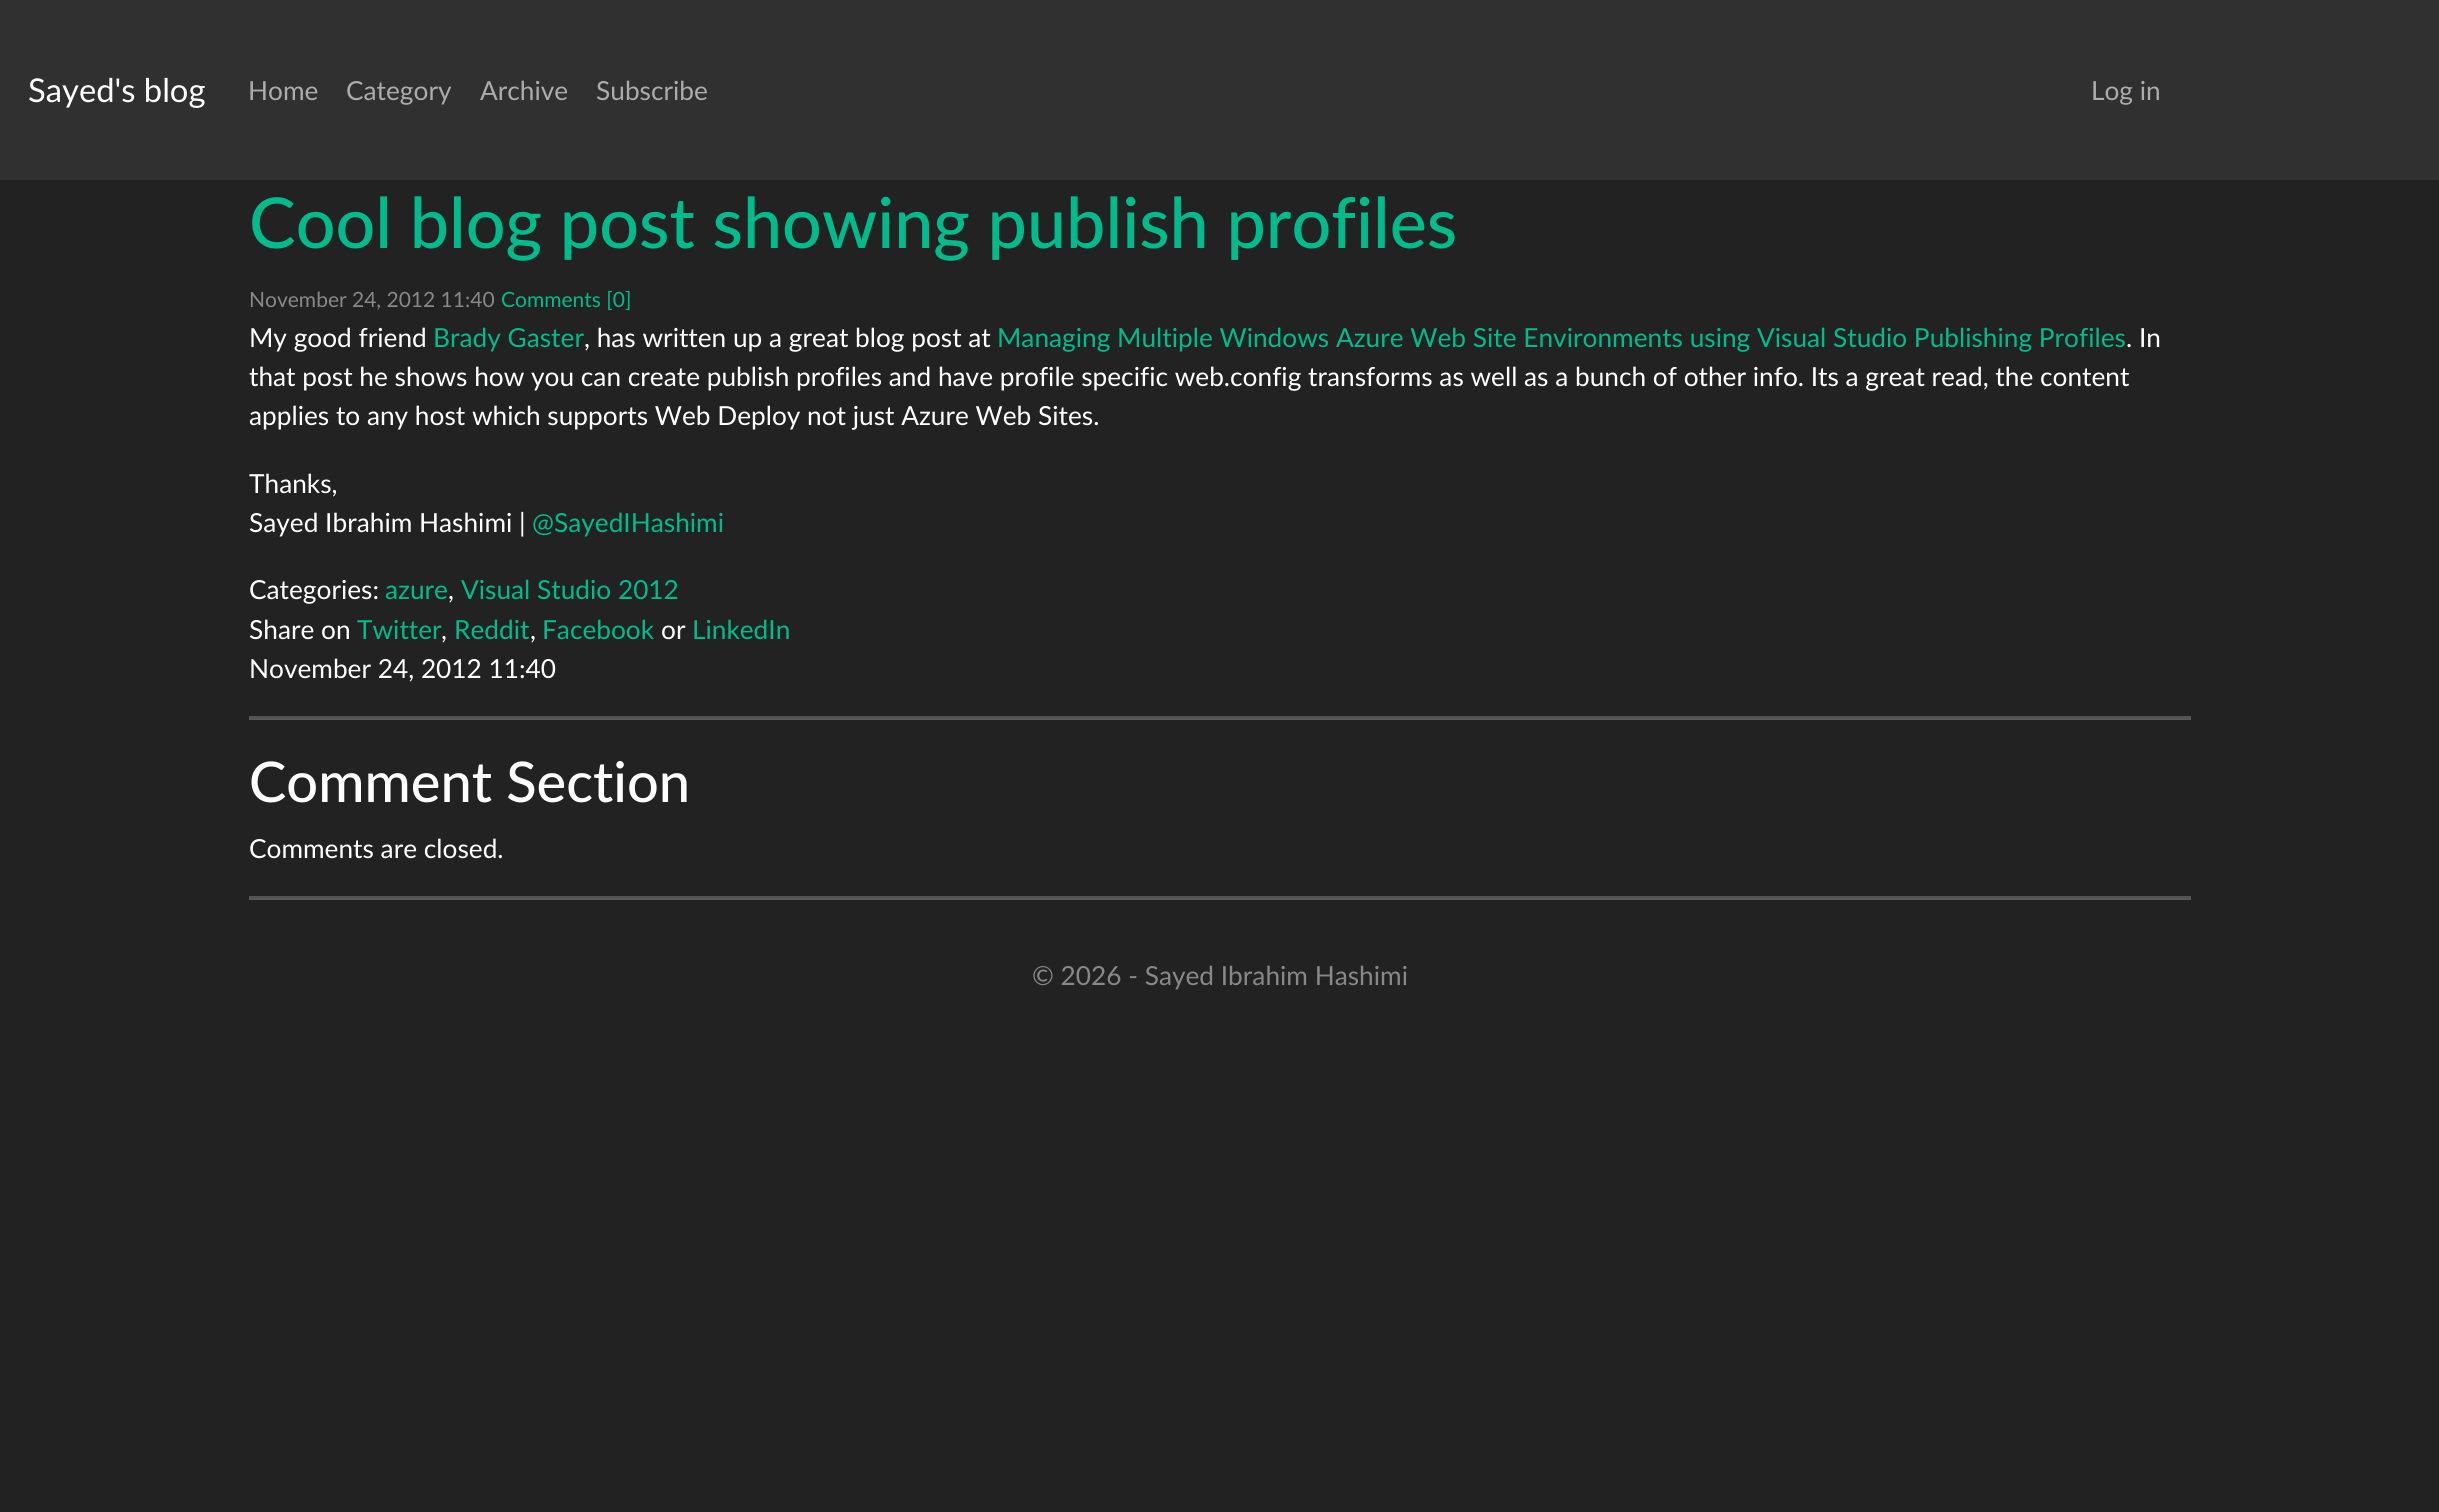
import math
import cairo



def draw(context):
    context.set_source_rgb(34 / 255, 34 / 255, 34 / 255)
    context.paint()
    context.set_source_rgb(48 / 255, 48 / 255, 48 / 255)
    context.rectangle(0, 0, 2439, 180)
    context.fill()
    context.set_source_rgb(89 / 255, 89 / 255, 89 / 255)
    context.rectangle(249, 718, 1942, 2)
    context.fill()
    context.set_source_rgb(83 / 255, 83 / 255, 83 / 255)
    context.rectangle(249, 716, 1942, 2)
    context.fill()
    context.set_source_rgb(89 / 255, 89 / 255, 89 / 255)
    context.rectangle(249, 898, 1942, 2)
    context.fill()
    context.set_source_rgb(83 / 255, 83 / 255, 83 / 255)
    context.rectangle(249, 896, 1942, 2)
    context.fill()
    context.select_font_face("Lato")
    context.set_font_size(32.75)
    context.set_source_rgb(1, 1, 1)
    context.move_to(28, 102)
    context.show_text("Sayed's blog")
    context.set_font_size(26.25)
    context.set_source_rgb(172 / 255, 172 / 255, 172 / 255)
    context.move_to(248, 100)
    context.show_text("Home")
    context.move_to(346, 100)
    context.show_text("Category")
    context.move_to(480, 100)
    context.show_text("Archive")
    context.move_to(596, 100)
    context.show_text("Subscribe")
    context.move_to(2091, 100)
    context.show_text("Log in")
    context.select_font_face("Lato Medium")
    context.set_font_size(70)
    context.set_source_rgb(0, 188 / 255, 140 / 255)
    context.move_to(249, 248)
    context.show_text("Cool blog post showing publish profiles")
    context.select_font_face("Lato")
    context.set_font_size(21)
    context.set_source_rgb(136 / 255, 136 / 255, 136 / 255)
    context.move_to(249, 307)
    context.show_text("November 24, 2012 11:40")
    context.set_source_rgb(0, 188 / 255, 140 / 255)
    context.move_to(501, 307)
    context.show_text("Comments [0]")
    context.set_font_size(26.25)
    context.set_source_rgb(1, 1, 1)
    context.move_to(249, 347)
    context.show_text("My good friend")
    context.set_source_rgb(0, 188 / 255, 140 / 255)
    context.move_to(433, 347)
    context.show_text("Brady Gaster")
    context.set_source_rgb(1, 1, 1)
    context.move_to(584, 347)
    context.show_text(", has written up a great blog post at")
    context.set_source_rgb(0, 188 / 255, 140 / 255)
    context.move_to(997, 347)
    context.show_text("Managing Multiple Windows Azure Web Site Environments using Visual Studio Publishing Profiles")
    context.set_source_rgb(1, 1, 1)
    context.move_to(2126, 347)
    context.show_text(". In")
    context.move_to(249, 386)
    context.show_text("that post he shows how you can create publish profiles and have profile specific web.config transforms as well as a bunch of other info. Its a great read, the content")
    context.move_to(249, 425)
    context.show_text("applies to any host which supports Web Deploy not just Azure Web Sites.")
    context.move_to(249, 493)
    context.show_text("Thanks,")
    context.move_to(249, 532)
    context.show_text("Sayed Ibrahim Hashimi |")
    context.set_source_rgb(0, 188 / 255, 140 / 255)
    context.move_to(532, 532)
    context.show_text("@SayedIHashimi")
    context.set_source_rgb(1, 1, 1)
    context.move_to(249, 599)
    context.show_text("Categories:")
    context.set_source_rgb(0, 188 / 255, 140 / 255)
    context.move_to(385, 599)
    context.show_text("azure")
    context.set_source_rgb(1, 1, 1)
    context.move_to(448, 599)
    context.show_text(",")
    context.set_source_rgb(0, 188 / 255, 140 / 255)
    context.move_to(461, 599)
    context.show_text("Visual Studio 2012")
    context.set_source_rgb(1, 1, 1)
    context.move_to(249, 639)
    context.show_text("Share on")
    context.set_source_rgb(0, 188 / 255, 140 / 255)
    context.move_to(357, 639)
    context.show_text("Twitter")
    context.set_source_rgb(1, 1, 1)
    context.move_to(441, 639)
    context.show_text(",")
    context.set_source_rgb(0, 188 / 255, 140 / 255)
    context.move_to(454, 639)
    context.show_text("Reddit")
    context.set_source_rgb(1, 1, 1)
    context.move_to(530, 639)
    context.show_text(",")
    context.set_source_rgb(0, 188 / 255, 140 / 255)
    context.move_to(542, 639)
    context.show_text("Facebook")
    context.set_source_rgb(1, 1, 1)
    context.move_to(661, 639)
    context.show_text("or")
    context.set_source_rgb(0, 188 / 255, 140 / 255)
    context.move_to(692, 639)
    context.show_text("LinkedIn")
    context.set_source_rgb(1, 1, 1)
    context.move_to(249, 678)
    context.show_text("November 24, 2012 11:40")
    context.select_font_face("Lato Medium")
    context.set_font_size(56)
    context.move_to(249, 802)
    context.show_text("Comment Section")
    context.select_font_face("Lato")
    context.set_font_size(26.25)
    context.move_to(249, 858)
    context.show_text("Comments are closed.")
    context.set_source_rgb(136 / 255, 136 / 255, 136 / 255)
    context.move_to(1032, 985)
    context.show_text("© 2026 - Sayed Ibrahim Hashimi")


surface = cairo.ImageSurface(cairo.Format.RGB24, 2439, 1512)
context = cairo.Context(surface)
options = cairo.FontOptions()
options.set_hint_metrics(cairo.HintMetrics.OFF)
options.set_hint_style(cairo.HintStyle.NONE)
context.set_font_options(options)
context.set_miter_limit(4)
draw(context)
surface.write_to_png("out.png")
